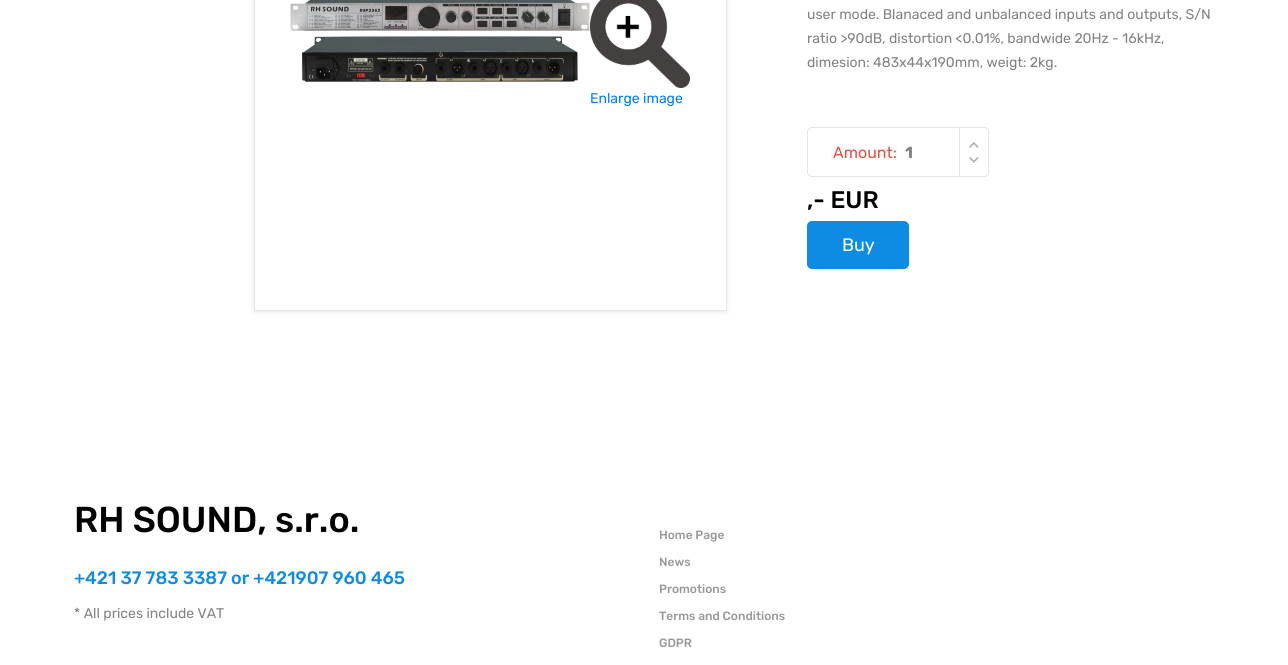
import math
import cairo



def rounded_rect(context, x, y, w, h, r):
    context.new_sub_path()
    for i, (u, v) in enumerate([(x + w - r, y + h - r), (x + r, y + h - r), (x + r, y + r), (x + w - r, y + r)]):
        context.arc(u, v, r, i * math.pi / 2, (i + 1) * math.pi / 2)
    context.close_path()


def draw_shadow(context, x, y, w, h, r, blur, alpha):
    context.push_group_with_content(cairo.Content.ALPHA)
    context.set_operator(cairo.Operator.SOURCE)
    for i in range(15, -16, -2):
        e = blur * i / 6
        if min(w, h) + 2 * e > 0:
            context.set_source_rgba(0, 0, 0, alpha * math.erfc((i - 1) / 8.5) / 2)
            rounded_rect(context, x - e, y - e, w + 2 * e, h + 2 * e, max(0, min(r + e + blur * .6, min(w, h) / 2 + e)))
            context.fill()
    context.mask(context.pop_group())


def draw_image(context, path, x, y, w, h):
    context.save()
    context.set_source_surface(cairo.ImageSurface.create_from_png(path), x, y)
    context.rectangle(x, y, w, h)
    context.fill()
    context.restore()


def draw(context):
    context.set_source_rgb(1, 1, 1)
    context.paint()
    context.save()
    context.set_fill_rule(cairo.FillRule.EVEN_ODD)
    context.new_path()
    context.move_to(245, 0)
    context.line_to(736, 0)
    context.line_to(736, 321)
    context.line_to(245, 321)
    context.close_path()
    context.move_to(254, -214)
    context.line_to(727, -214)
    context.line_to(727, 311)
    context.line_to(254, 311)
    context.close_path()
    context.clip()
    context.set_source_rgb(0, 0, 0)
    draw_shadow(context, 254, -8, 473, 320, 0, 2.5, 0.1)
    context.restore()
    context.rectangle(254.5, -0.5, 472, 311)
    context.set_source_rgb(232 / 255, 232 / 255, 232 / 255)
    context.set_line_width(1)
    context.stroke()
    draw_image(context, "images/1.png", 290, 0, 300, 82)
    draw_image(context, "images/2.png", 590, 0, 100, 88)
    rounded_rect(context, 807.5, 127.5, 181, 49, 4.5)
    context.set_source_rgb(229 / 255, 229 / 255, 229 / 255)
    context.stroke()
    context.rectangle(959, 128, 1, 48)
    context.fill()
    draw_image(context, "images/3.png", 969, 142, 10, 6)
    draw_image(context, "images/4.png", 969, 157, 10, 6)
    context.set_source_rgb(14 / 255, 140 / 255, 228 / 255)
    rounded_rect(context, 807, 221, 102, 48, 5)
    context.fill()
    context.select_font_face("Rubik")
    context.set_font_size(14)
    context.set_source_rgb(0, 123 / 255, 1)
    context.move_to(590, 103)
    context.show_text("Enlarge image")
    context.set_source_rgb(130 / 255, 130 / 255, 130 / 255)
    context.move_to(807, 19)
    context.show_text("user mode. Blanaced and unbalanced inputs and outputs, S/N")
    context.move_to(807, 43)
    context.show_text("ratio >90dB, distortion <0.01%, bandwide 20Hz - 16kHz,")
    context.move_to(807, 67)
    context.show_text("dimesion: 483x44x190mm, weigt: 2kg.")
    context.set_font_size(16)
    context.set_source_rgb(219 / 255, 82 / 255, 70 / 255)
    context.move_to(833, 158)
    context.show_text("Amount:")
    context.select_font_face("Rubik", cairo.FontSlant.NORMAL, cairo.FontWeight.BOLD)
    context.set_source_rgb(130 / 255, 130 / 255, 130 / 255)
    context.move_to(905, 158)
    context.show_text("1")
    context.select_font_face("Rubik Medium")
    context.set_font_size(24)
    context.set_source_rgb(0, 0, 0)
    context.move_to(807, 208)
    context.show_text(",- EUR")
    context.select_font_face("Rubik")
    context.set_font_size(18)
    context.set_source_rgb(1, 1, 1)
    context.move_to(842, 251)
    context.show_text("Buy")
    context.select_font_face("Rubik Medium")
    context.set_font_size(36)
    context.set_source_rgb(0, 0, 0)
    context.move_to(74, 532)
    context.show_text("RH SOUND, s.r.o.")
    context.set_font_size(18)
    context.set_source_rgb(14 / 255, 140 / 255, 228 / 255)
    context.move_to(74, 584)
    context.show_text("+421 37 783 3387 or +421907 960 465")
    context.select_font_face("Rubik")
    context.set_font_size(14)
    context.set_source_rgb(130 / 255, 130 / 255, 130 / 255)
    context.move_to(74, 618)
    context.show_text("* All prices include VAT")
    context.select_font_face("Rubik Medium")
    context.set_font_size(12)
    context.set_source_rgb(153 / 255, 153 / 255, 153 / 255)
    context.move_to(659, 539)
    context.show_text("Home Page")
    context.move_to(659, 566)
    context.show_text("News")
    context.move_to(659, 593)
    context.show_text("Promotions")
    context.move_to(659, 620)
    context.show_text("Terms and Conditions")
    context.move_to(659, 647)
    context.show_text("GDPR")


surface = cairo.ImageSurface(cairo.Format.RGB24, 1288, 665)
context = cairo.Context(surface)
options = cairo.FontOptions()
options.set_hint_metrics(cairo.HintMetrics.OFF)
options.set_hint_style(cairo.HintStyle.NONE)
context.set_font_options(options)
context.set_miter_limit(4)
draw(context)
surface.write_to_png("out.png")
